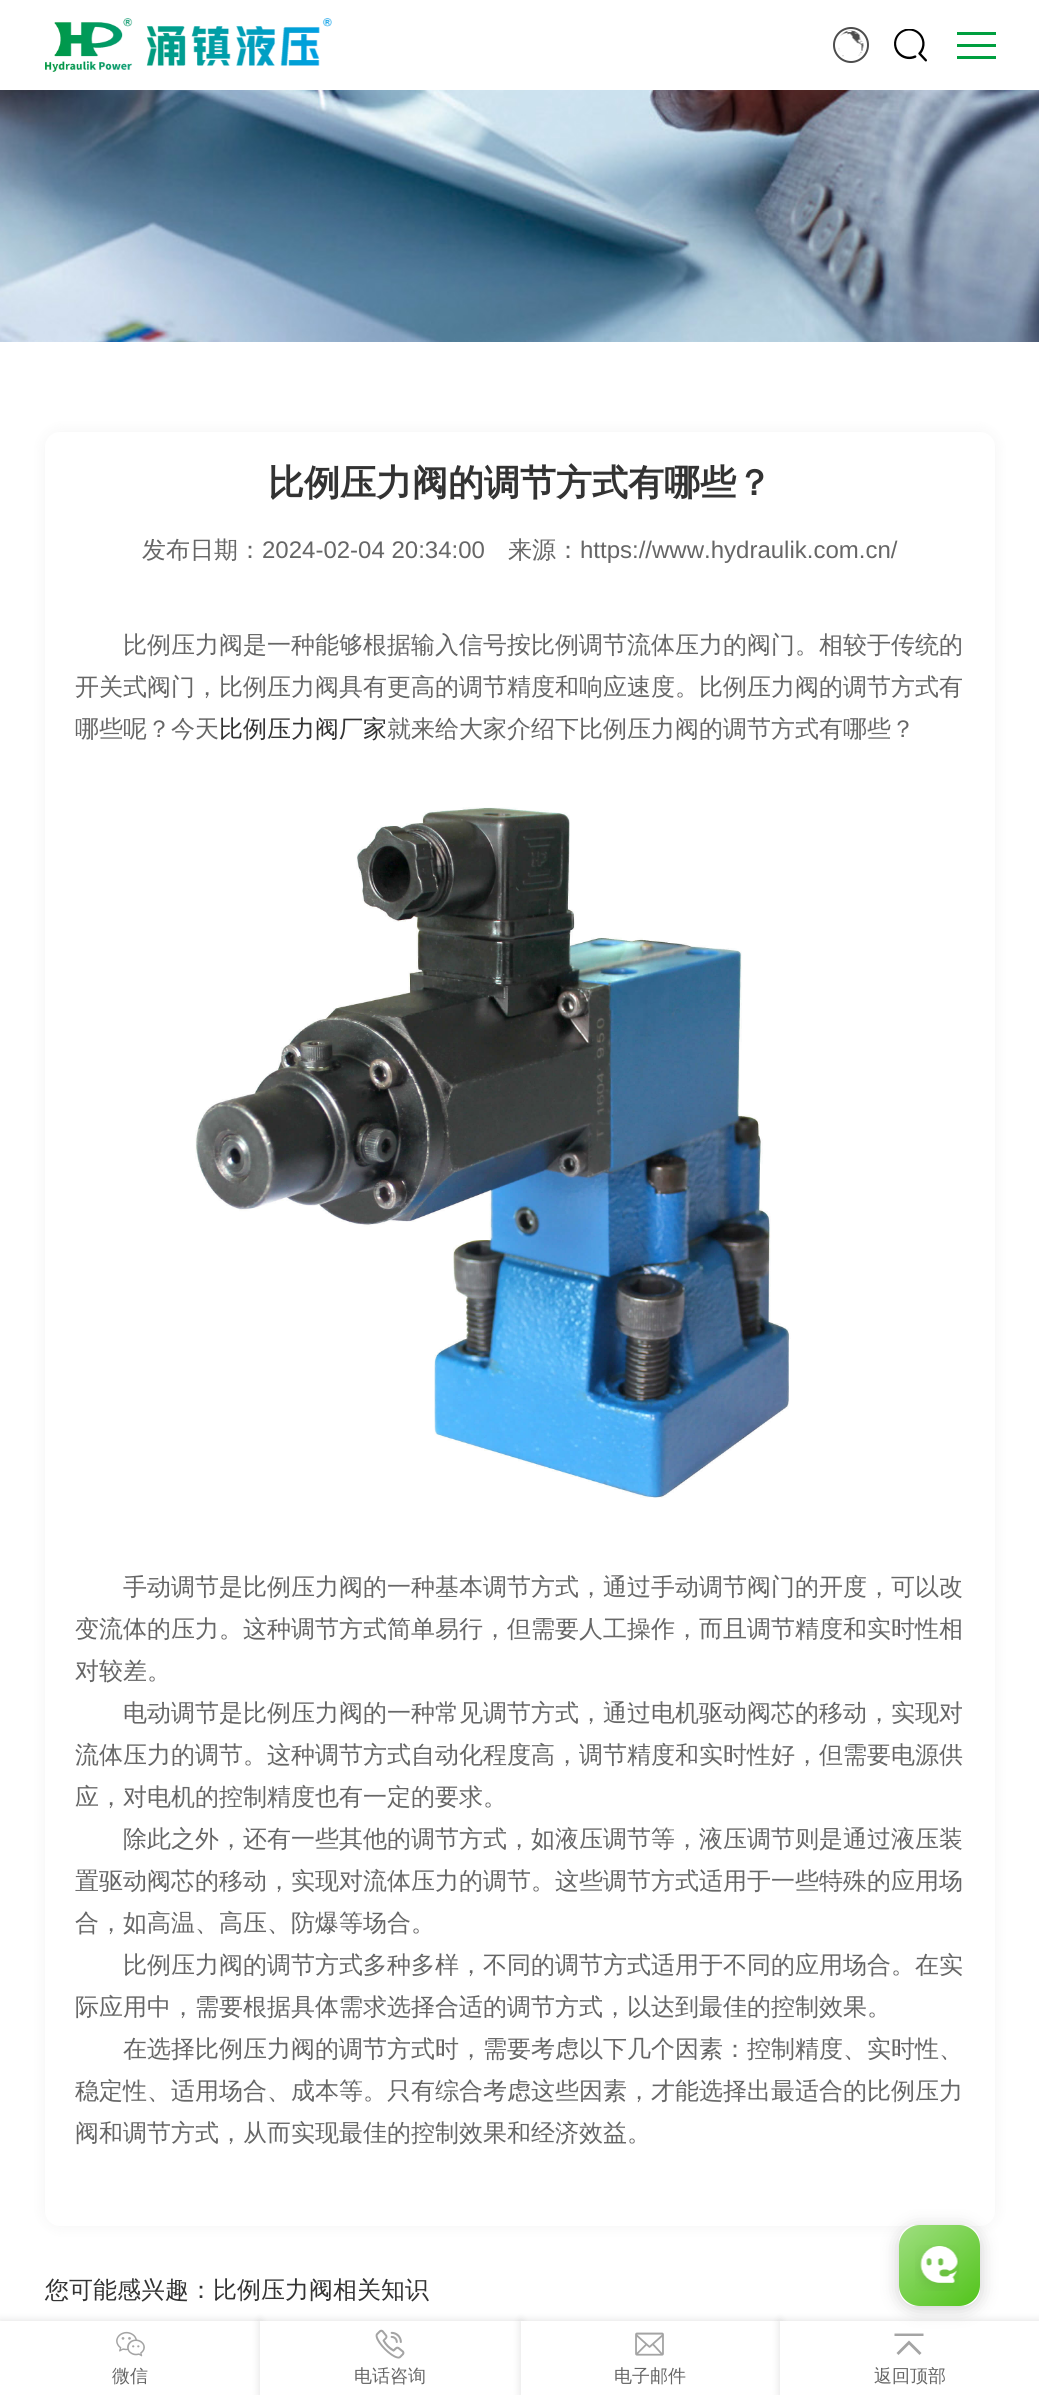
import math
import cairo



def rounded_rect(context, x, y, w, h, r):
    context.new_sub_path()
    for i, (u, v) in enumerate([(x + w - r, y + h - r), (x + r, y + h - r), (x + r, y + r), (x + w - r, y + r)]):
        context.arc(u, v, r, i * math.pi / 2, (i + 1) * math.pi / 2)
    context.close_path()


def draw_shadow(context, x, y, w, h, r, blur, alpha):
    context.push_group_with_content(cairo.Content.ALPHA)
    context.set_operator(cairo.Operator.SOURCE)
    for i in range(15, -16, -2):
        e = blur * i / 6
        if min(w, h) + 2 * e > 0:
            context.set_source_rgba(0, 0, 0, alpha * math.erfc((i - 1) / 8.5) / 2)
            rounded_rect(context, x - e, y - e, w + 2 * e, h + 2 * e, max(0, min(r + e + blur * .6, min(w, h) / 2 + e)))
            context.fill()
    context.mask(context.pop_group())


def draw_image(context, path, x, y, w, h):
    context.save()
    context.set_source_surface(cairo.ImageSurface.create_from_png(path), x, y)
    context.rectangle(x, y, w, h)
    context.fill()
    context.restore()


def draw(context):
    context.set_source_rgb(1, 1, 1)
    context.paint()
    draw_image(context, "images/1.png", 45, 18, 287, 54)
    context.arc(851, 45, 17, 0, 2 * math.pi)
    context.set_source_rgb(77 / 255, 77 / 255, 77 / 255)
    context.stroke()
    draw_image(context, "images/2.png", 838, 30, 26, 27)
    draw_image(context, "images/3.png", 894, 29, 33, 33)
    context.set_source_rgb(0, 159 / 255, 63 / 255)
    context.rectangle(957, 44, 39, 3)
    context.fill()
    context.rectangle(957, 32, 39, 3)
    context.fill()
    context.rectangle(957, 56, 39, 3)
    context.fill()
    draw_image(context, "images/4.png", 0, 90, 1039, 252)
    context.set_source_rgb(0, 0, 0)
    draw_shadow(context, 45, 432, 950, 1794, 15, 7.5, 0.05)
    context.set_source_rgb(1, 1, 1)
    rounded_rect(context, 45, 432, 950, 1794, 15)
    context.fill()
    draw_image(context, "images/5.png", 195, 807, 596, 691)
    context.set_source_rgb(82 / 255, 196 / 255, 27 / 255)
    rounded_rect(context, 899, 2225, 81, 81, 21)
    context.fill()
    context.set_source_rgb(0, 0, 0)
    draw_shadow(context, 0, 2321, 260, 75, 0, 4.5, 0.13)
    context.set_source_rgb(1, 1, 1)
    context.rectangle(0, 2321, 260, 74)
    context.fill()
    context.set_source_rgb(0, 0, 0)
    draw_shadow(context, 260, 2321, 261, 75, 0, 4.5, 0.13)
    context.set_source_rgb(1, 1, 1)
    context.rectangle(260, 2321, 261, 74)
    context.fill()
    context.set_source_rgb(0, 0, 0)
    draw_shadow(context, 521, 2321, 259, 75, 0, 4.5, 0.13)
    context.set_source_rgb(1, 1, 1)
    context.rectangle(521, 2321, 259, 74)
    context.fill()
    context.set_source_rgb(0, 0, 0)
    draw_shadow(context, 780, 2321, 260, 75, 0, 4.5, 0.13)
    context.set_source_rgb(1, 1, 1)
    context.rectangle(780, 2321, 259, 74)
    context.fill()
    context.set_source_rgb(164 / 255, 164 / 255, 164 / 255)
    context.new_path()
    context.move_to(896.5, 2353)
    context.line_to(898.5, 2355)
    context.line_to(909, 2344.5)
    context.line_to(919.5, 2355)
    context.line_to(921.5, 2353)
    context.line_to(909, 2340.5)
    context.close_path()
    context.move_to(894.5, 2333.5)
    context.line_to(923.5, 2333.5)
    context.line_to(923.5, 2336)
    context.line_to(894.5, 2336)
    context.close_path()
    context.fill()
    context.save()
    context.set_fill_rule(cairo.FillRule.EVEN_ODD)
    context.new_path()
    context.move_to(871, 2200)
    context.line_to(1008, 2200)
    context.line_to(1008, 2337)
    context.line_to(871, 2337)
    context.close_path()
    context.move_to(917, 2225)
    context.line_to(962, 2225)
    context.curve_to(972, 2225, 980, 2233, 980, 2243)
    context.line_to(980, 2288)
    context.curve_to(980, 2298, 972, 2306, 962, 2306)
    context.line_to(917, 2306)
    context.curve_to(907, 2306, 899, 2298, 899, 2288)
    context.line_to(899, 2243)
    context.curve_to(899, 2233, 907, 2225, 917, 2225)
    context.close_path()
    context.clip()
    context.set_source_rgb(0, 0, 0)
    draw_shadow(context, 899, 2228, 81, 81, 18, 9, 0.2)
    context.restore()
    gradient = cairo.LinearGradient(901, 2222, 977, 2308)
    gradient.add_color_stop_rgba(0, 1, 1, 1, 0.45)
    gradient.add_color_stop_rgba(1, 1, 1, 1, 0)
    context.set_source(gradient)
    rounded_rect(context, 899, 2225, 81, 81, 18)
    context.fill()
    draw_image(context, "images/6.png", 915, 2245, 44, 46)
    draw_image(context, "images/7.png", 116, 2331, 29, 26)
    draw_image(context, "images/8.png", 375, 2329, 30, 30)
    draw_image(context, "images/9.png", 635, 2332, 29, 24)
    context.select_font_face("WenQuanYi Zen Hei", cairo.FontSlant.NORMAL, cairo.FontWeight.BOLD)
    context.set_font_size(36)
    context.set_source_rgb(51 / 255, 51 / 255, 51 / 255)
    context.move_to(268, 495)
    context.show_text("比例压力阀的调节方式有哪些？")
    context.select_font_face("WenQuanYi Zen Hei Medium")
    context.set_font_size(24)
    context.set_source_rgb(102 / 255, 102 / 255, 102 / 255)
    context.move_to(142, 558)
    context.show_text("发布日期：")
    context.select_font_face("Liberation Sans")
    context.move_to(262, 558)
    context.show_text("2024-02-04 20:34:00")
    context.select_font_face("WenQuanYi Zen Hei Medium")
    context.move_to(508, 558)
    context.show_text("来源：")
    context.select_font_face("Liberation Sans")
    context.move_to(580, 558)
    context.show_text("https://www.hydraulik.com.cn/")
    context.select_font_face("WenQuanYi Zen Hei Medium")
    context.move_to(123, 653)
    context.show_text("比例压力阀是一种能够根据输入信号按比例调节流体压力的阀门。相较于传统的")
    context.move_to(75, 695)
    context.show_text("开关式阀门，比例压力阀具有更高的调节精度和响应速度。比例压力阀的调节方式有")
    context.move_to(75, 737)
    context.show_text("哪些呢？今天")
    context.set_source_rgb(51 / 255, 51 / 255, 51 / 255)
    context.move_to(219, 737)
    context.show_text("比例压力阀厂家")
    context.set_source_rgb(102 / 255, 102 / 255, 102 / 255)
    context.move_to(387, 737)
    context.show_text("就来给大家介绍下比例压力阀的调节方式有哪些？")
    context.move_to(123, 1595)
    context.show_text("手动调节是比例压力阀的一种基本调节方式，通过手动调节阀门的开度，可以改")
    context.move_to(75, 1637)
    context.show_text("变流体的压力。这种调节方式简单易行，但需要人工操作，而且调节精度和实时性相")
    context.move_to(75, 1679)
    context.show_text("对较差。")
    context.move_to(123, 1721)
    context.show_text("电动调节是比例压力阀的一种常见调节方式，通过电机驱动阀芯的移动，实现对")
    context.move_to(75, 1763)
    context.show_text("流体压力的调节。这种调节方式自动化程度高，调节精度和实时性好，但需要电源供")
    context.move_to(75, 1805)
    context.show_text("应，对电机的控制精度也有一定的要求。")
    context.move_to(123, 1847)
    context.show_text("除此之外，还有一些其他的调节方式，如液压调节等，液压调节则是通过液压装")
    context.move_to(75, 1889)
    context.show_text("置驱动阀芯的移动，实现对流体压力的调节。这些调节方式适用于一些特殊的应用场")
    context.move_to(75, 1931)
    context.show_text("合，如高温、高压、防爆等场合。")
    context.move_to(123, 1973)
    context.show_text("比例压力阀的调节方式多种多样，不同的调节方式适用于不同的应用场合。在实")
    context.move_to(75, 2015)
    context.show_text("际应用中，需要根据具体需求选择合适的调节方式，以达到最佳的控制效果。")
    context.move_to(123, 2057)
    context.show_text("在选择比例压力阀的调节方式时，需要考虑以下几个因素：控制精度、实时性、")
    context.move_to(75, 2099)
    context.show_text("稳定性、适用场合、成本等。只有综合考虑这些因素，才能选择出最适合的比例压力")
    context.move_to(75, 2141)
    context.show_text("阀和调节方式，从而实现最佳的控制效果和经济效益。")
    context.set_source_rgb(51 / 255, 51 / 255, 51 / 255)
    context.move_to(45, 2298)
    context.show_text("您可能感兴趣：比例压力阀相关知识")
    context.set_font_size(18)
    context.set_source_rgb(102 / 255, 102 / 255, 102 / 255)
    context.move_to(112, 2382)
    context.show_text("微信")
    context.move_to(354, 2382)
    context.show_text("电话咨询")
    context.move_to(614, 2382)
    context.show_text("电子邮件")
    context.move_to(874, 2382)
    context.show_text("返回顶部")


surface = cairo.ImageSurface(cairo.Format.RGB24, 1039, 2395)
context = cairo.Context(surface)
options = cairo.FontOptions()
options.set_hint_metrics(cairo.HintMetrics.OFF)
options.set_hint_style(cairo.HintStyle.NONE)
context.set_font_options(options)
context.set_miter_limit(4)
draw(context)
surface.write_to_png("out.png")
